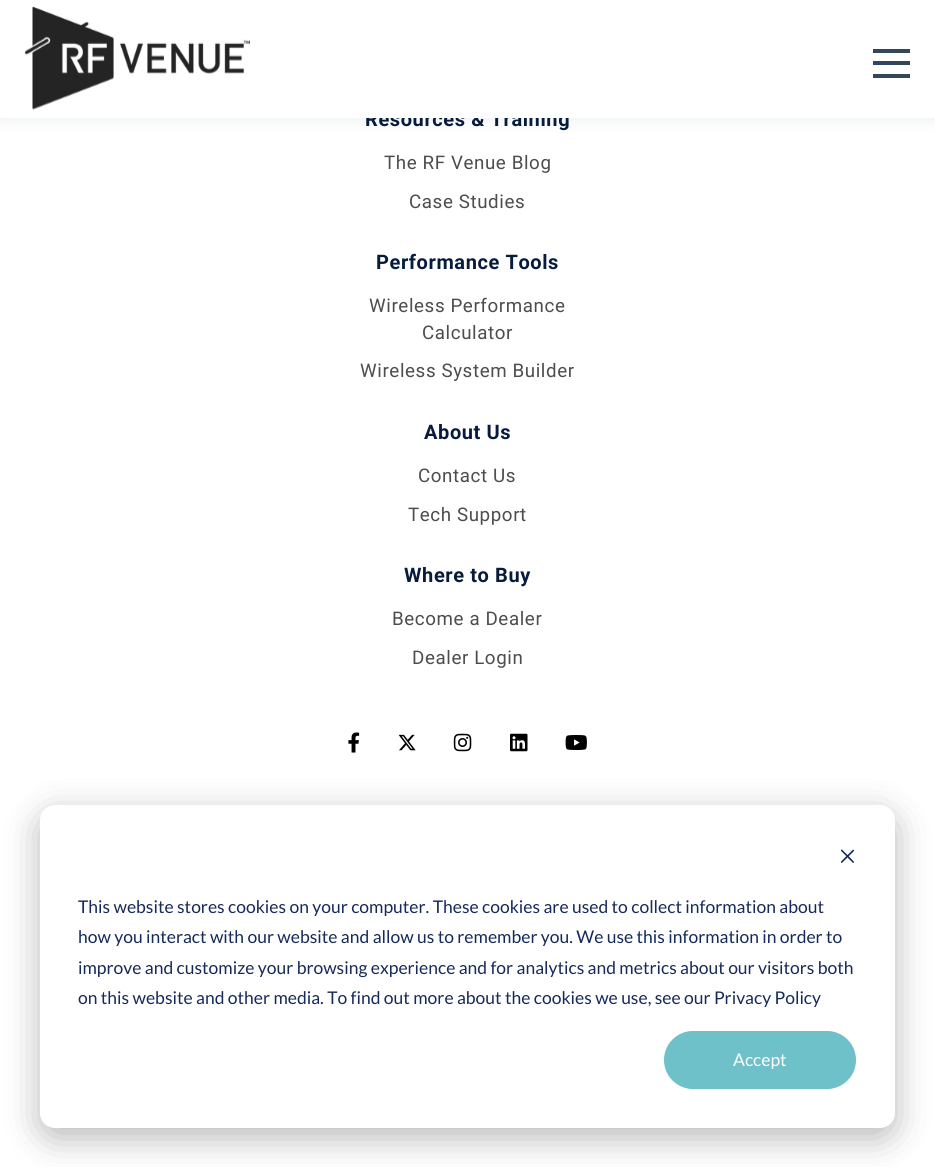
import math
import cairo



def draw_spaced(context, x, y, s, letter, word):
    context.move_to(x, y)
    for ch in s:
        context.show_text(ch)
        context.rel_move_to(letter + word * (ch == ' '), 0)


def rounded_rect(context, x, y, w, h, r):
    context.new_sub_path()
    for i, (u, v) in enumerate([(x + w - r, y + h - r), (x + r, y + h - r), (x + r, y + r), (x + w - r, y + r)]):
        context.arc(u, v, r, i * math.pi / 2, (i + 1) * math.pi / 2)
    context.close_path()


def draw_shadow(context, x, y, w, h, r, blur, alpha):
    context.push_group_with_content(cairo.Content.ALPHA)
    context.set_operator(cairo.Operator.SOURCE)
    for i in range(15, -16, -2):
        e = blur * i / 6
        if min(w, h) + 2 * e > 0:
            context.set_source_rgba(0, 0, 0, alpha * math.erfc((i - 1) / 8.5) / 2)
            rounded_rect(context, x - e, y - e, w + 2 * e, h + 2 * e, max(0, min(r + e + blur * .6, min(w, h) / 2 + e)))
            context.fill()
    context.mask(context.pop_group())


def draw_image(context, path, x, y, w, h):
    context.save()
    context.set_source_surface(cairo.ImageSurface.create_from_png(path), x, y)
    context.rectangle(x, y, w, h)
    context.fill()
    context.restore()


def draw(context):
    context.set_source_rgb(1, 1, 1)
    context.paint()
    context.set_source_rgb(51 / 255, 71 / 255, 91 / 255)
    draw_shadow(context, 0, 1, 935, 118, 0, 7.5, 0.1)
    draw_image(context, "images/2.png", 348, 732, 12, 21)
    draw_image(context, "images/3.png", 398, 734, 18, 17)
    draw_image(context, "images/4.png", 453, 733, 19, 19)
    draw_image(context, "images/5.png", 510, 733, 18, 19)
    draw_image(context, "images/6.png", 565, 735, 22, 15)
    context.set_source_rgb(0, 0, 0)
    draw_shadow(context, 40, 815, 855, 323, 15, 17.5, 0.28)
    context.set_source_rgb(1, 1, 1)
    rounded_rect(context, 40, 805, 855, 323, 15)
    context.fill()
    draw_image(context, "images/7.png", 840, 849, 15, 14)
    context.set_source_rgb(110 / 255, 192 / 255, 201 / 255)
    rounded_rect(context, 664.5, 1031.5, 191, 57, 28.5)
    context.fill_preserve()
    context.set_line_width(1)
    context.stroke()
    context.select_font_face("Roboto", cairo.FontSlant.NORMAL, cairo.FontWeight.BOLD)
    context.set_font_size(20)
    context.set_source_rgb(7 / 255, 27 / 255, 61 / 255)
    draw_spaced(context, 365, 126, "Resources & Training", 0.6, 0)
    context.set_source_rgb(1, 1, 1)
    context.rectangle(0, 0, 935, 118)
    context.fill()
    context.set_source_rgb(51 / 255, 71 / 255, 91 / 255)
    context.rectangle(873, 49, 37, 4)
    context.fill()
    context.rectangle(873, 74, 37, 4)
    context.fill()
    context.rectangle(873, 61, 37, 4)
    context.fill()
    draw_image(context, "images/1.png", 25, 6, 225, 104)
    context.select_font_face("Roboto")
    context.set_font_size(18.75)
    context.set_source_rgb(77 / 255, 77 / 255, 77 / 255)
    draw_spaced(context, 384, 169, "The RF Venue Blog", 0.6, 0)
    draw_spaced(context, 409, 208, "Case Studies", 0.6, 0)
    context.select_font_face("Roboto", cairo.FontSlant.NORMAL, cairo.FontWeight.BOLD)
    context.set_font_size(20)
    context.set_source_rgb(7 / 255, 27 / 255, 61 / 255)
    draw_spaced(context, 376, 269, "Performance Tools", 0.6, 0)
    context.select_font_face("Roboto")
    context.set_font_size(18.75)
    context.set_source_rgb(77 / 255, 77 / 255, 77 / 255)
    draw_spaced(context, 369, 312, "Wireless Performance", 0.6, 0)
    draw_spaced(context, 422, 339, "Calculator", 0.6, 0)
    draw_spaced(context, 360, 377, "Wireless System Builder", 0.6, 0)
    context.select_font_face("Roboto", cairo.FontSlant.NORMAL, cairo.FontWeight.BOLD)
    context.set_font_size(20)
    context.set_source_rgb(7 / 255, 27 / 255, 61 / 255)
    draw_spaced(context, 424, 439, "About Us", 0.6, 0)
    context.select_font_face("Roboto")
    context.set_font_size(18.75)
    context.set_source_rgb(77 / 255, 77 / 255, 77 / 255)
    draw_spaced(context, 418, 482, "Contact Us", 0.6, 0)
    draw_spaced(context, 408, 521, "Tech Support", 0.6, 0)
    context.select_font_face("Roboto", cairo.FontSlant.NORMAL, cairo.FontWeight.BOLD)
    context.set_font_size(20)
    context.set_source_rgb(7 / 255, 27 / 255, 61 / 255)
    draw_spaced(context, 404, 582, "Where to Buy", 0.6, 0)
    context.select_font_face("Roboto")
    context.set_font_size(18.75)
    context.set_source_rgb(77 / 255, 77 / 255, 77 / 255)
    draw_spaced(context, 392, 625, "Become a Dealer", 0.6, 0)
    draw_spaced(context, 412, 664, "Dealer Login", 0.6, 0)
    context.select_font_face("Lato")
    context.set_font_size(17.5)
    context.set_source_rgb(21 / 255, 41 / 255, 90 / 255)
    context.move_to(78, 913)
    context.show_text("This website stores cookies on your computer. These cookies are used to collect information about")
    context.move_to(78, 943)
    context.show_text("how you interact with our website and allow us to remember you. We use this information in order to")
    context.move_to(78, 974)
    context.show_text("improve and customize your browsing experience and for analytics and metrics about our visitors both")
    context.move_to(78, 1004)
    context.show_text("on this website and other media. To find out more about the cookies we use, see our Privacy Policy")
    context.set_source_rgb(1, 1, 1)
    context.move_to(733, 1066)
    context.show_text("Accept")


surface = cairo.ImageSurface(cairo.Format.RGB24, 935, 1167)
context = cairo.Context(surface)
options = cairo.FontOptions()
options.set_hint_metrics(cairo.HintMetrics.OFF)
options.set_hint_style(cairo.HintStyle.NONE)
context.set_font_options(options)
context.set_miter_limit(4)
draw(context)
surface.write_to_png("out.png")
